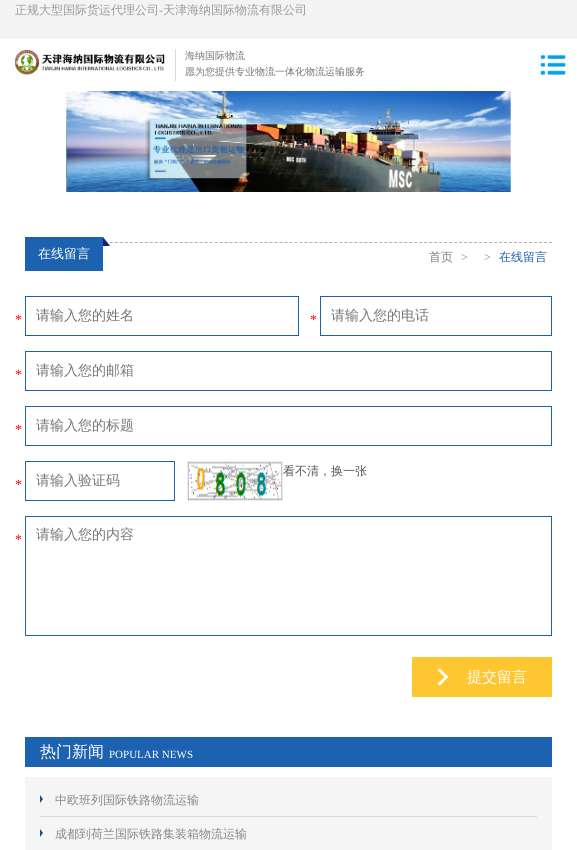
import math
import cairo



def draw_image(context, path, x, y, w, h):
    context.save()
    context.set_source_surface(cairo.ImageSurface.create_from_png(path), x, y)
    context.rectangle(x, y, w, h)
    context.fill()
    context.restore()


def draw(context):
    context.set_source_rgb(1, 1, 1)
    context.paint()
    context.set_source_rgb(244 / 255, 244 / 255, 244 / 255)
    context.rectangle(0, 0, 577, 37)
    context.fill()
    context.set_source_rgb(234 / 255, 237 / 255, 240 / 255)
    context.rectangle(0, 37, 577, 1)
    context.fill()
    draw_image(context, "images/1.png", 15, 49, 150, 26)
    context.set_source_rgb(218 / 255, 218 / 255, 218 / 255)
    context.rectangle(175, 49, 1, 32)
    context.fill()
    draw_image(context, "images/2.png", 540, 54, 26, 21)
    draw_image(context, "images/3.png", 66, 91, 445, 101)
    context.new_path()
    context.move_to(25, 242.5)
    context.line_to(552, 242.5)
    context.set_source_rgb(177 / 255, 177 / 255, 177 / 255)
    context.set_line_width(1)
    context.set_dash([3, 1.99])
    context.stroke()
    context.set_source_rgb(28 / 255, 98 / 255, 176 / 255)
    context.rectangle(25, 237, 78, 34)
    context.fill()
    context.set_source_rgb(27 / 255, 31 / 255, 122 / 255)
    context.new_path()
    context.move_to(103, 246)
    context.line_to(103, 237)
    context.line_to(110, 246)
    context.close_path()
    context.fill()
    context.rectangle(25.5, 296.5, 273, 39)
    context.set_source_rgb(28 / 255, 98 / 255, 176 / 255)
    context.set_dash([])
    context.stroke()
    context.rectangle(320.5, 296.5, 231, 39)
    context.stroke()
    context.rectangle(25.5, 351.5, 526, 39)
    context.stroke()
    context.rectangle(25.5, 406.5, 526, 39)
    context.stroke()
    context.rectangle(187.5, 461.5, 95, 39)
    context.set_source_rgb(236 / 255, 236 / 255, 236 / 255)
    context.stroke()
    draw_image(context, "images/4.png", 188, 462, 94, 38)
    context.rectangle(25.5, 461.5, 149, 39)
    context.set_source_rgb(28 / 255, 98 / 255, 176 / 255)
    context.stroke()
    context.rectangle(25.5, 516.5, 526, 119)
    context.stroke()
    context.set_source_rgb(254 / 255, 199 / 255, 50 / 255)
    context.rectangle(412, 657, 140, 40)
    context.fill()
    draw_image(context, "images/5.png", 437, 668, 12, 19)
    context.set_source_rgb(28 / 255, 98 / 255, 176 / 255)
    context.rectangle(25, 737, 527, 30)
    context.fill()
    context.set_source_rgb(245 / 255, 245 / 255, 245 / 255)
    context.rectangle(25, 777, 527, 73)
    context.fill()
    context.set_source_rgb(218 / 255, 218 / 255, 218 / 255)
    context.rectangle(40, 816, 497, 1)
    context.fill()
    context.set_source_rgb(21 / 255, 82 / 255, 149 / 255)
    context.new_path()
    context.move_to(40, 803)
    context.line_to(40, 795)
    context.line_to(43, 799)
    context.close_path()
    context.fill()
    context.new_path()
    context.move_to(40, 837)
    context.line_to(40, 829)
    context.line_to(43, 833)
    context.close_path()
    context.fill()
    context.select_font_face("WenQuanYi Zen Hei Medium")
    context.set_font_size(12)
    context.set_source_rgb(153 / 255, 153 / 255, 153 / 255)
    context.move_to(15, 14)
    context.show_text("正规大型国际货运代理公司")
    context.select_font_face("Liberation Serif")
    context.move_to(159, 14)
    context.show_text("-")
    context.select_font_face("WenQuanYi Zen Hei Medium")
    context.move_to(163, 14)
    context.show_text("天津海纳国际物流有限公司")
    context.set_font_size(10)
    context.set_source_rgb(117 / 255, 117 / 255, 117 / 255)
    context.move_to(185, 59)
    context.show_text("海纳国际物流")
    context.move_to(185, 75)
    context.show_text("愿为您提供专业物流一体化物流运输服务")
    context.set_font_size(13)
    context.set_source_rgb(1, 1, 1)
    context.move_to(38, 258)
    context.show_text("在线留言")
    context.set_font_size(12)
    context.set_source_rgb(126 / 255, 125 / 255, 125 / 255)
    context.move_to(429, 261)
    context.show_text("首页")
    context.select_font_face("Liberation Serif")
    context.move_to(461, 261)
    context.show_text(">")
    context.move_to(484, 261)
    context.show_text(">")
    context.select_font_face("WenQuanYi Zen Hei Medium")
    context.set_source_rgb(28 / 255, 98 / 255, 176 / 255)
    context.move_to(499, 261)
    context.show_text("在线留言")
    context.select_font_face("Liberation Serif")
    context.set_font_size(14)
    context.set_source_rgb(1, 0, 0)
    context.move_to(15, 324)
    context.show_text("*")
    context.select_font_face("WenQuanYi Zen Hei Medium")
    context.set_source_rgb(117 / 255, 117 / 255, 117 / 255)
    context.move_to(36, 320)
    context.show_text("请输入您的姓名")
    context.select_font_face("Liberation Serif")
    context.set_source_rgb(1, 0, 0)
    context.move_to(310, 324)
    context.show_text("*")
    context.select_font_face("WenQuanYi Zen Hei Medium")
    context.set_source_rgb(117 / 255, 117 / 255, 117 / 255)
    context.move_to(331, 320)
    context.show_text("请输入您的电话")
    context.select_font_face("Liberation Serif")
    context.set_source_rgb(1, 0, 0)
    context.move_to(15, 379)
    context.show_text("*")
    context.select_font_face("WenQuanYi Zen Hei Medium")
    context.set_source_rgb(117 / 255, 117 / 255, 117 / 255)
    context.move_to(36, 375)
    context.show_text("请输入您的邮箱")
    context.select_font_face("Liberation Serif")
    context.set_source_rgb(1, 0, 0)
    context.move_to(15, 434)
    context.show_text("*")
    context.select_font_face("WenQuanYi Zen Hei Medium")
    context.set_source_rgb(117 / 255, 117 / 255, 117 / 255)
    context.move_to(36, 430)
    context.show_text("请输入您的标题")
    context.set_font_size(12)
    context.set_source_rgb(88 / 255, 86 / 255, 87 / 255)
    context.move_to(283, 475)
    context.show_text("看不清，换一张")
    context.select_font_face("Liberation Serif")
    context.set_font_size(14)
    context.set_source_rgb(1, 0, 0)
    context.move_to(15, 489)
    context.show_text("*")
    context.select_font_face("WenQuanYi Zen Hei Medium")
    context.set_source_rgb(117 / 255, 117 / 255, 117 / 255)
    context.move_to(36, 485)
    context.show_text("请输入验证码")
    context.select_font_face("Liberation Serif")
    context.set_source_rgb(1, 0, 0)
    context.move_to(15, 544)
    context.show_text("*")
    context.select_font_face("WenQuanYi Zen Hei Medium")
    context.set_source_rgb(117 / 255, 117 / 255, 117 / 255)
    context.move_to(36, 539)
    context.show_text("请输入您的内容")
    context.set_font_size(15)
    context.set_source_rgb(1, 1, 1)
    context.move_to(467, 682)
    context.show_text("提交留言")
    context.set_font_size(16)
    context.move_to(40, 757)
    context.show_text("热门新闻")
    context.select_font_face("Liberation Serif")
    context.set_font_size(11)
    context.move_to(109, 758)
    context.show_text("POPULAR NEWS")
    context.select_font_face("WenQuanYi Zen Hei Medium")
    context.set_font_size(12)
    context.set_source_rgb(135 / 255, 135 / 255, 135 / 255)
    context.move_to(55, 804)
    context.show_text("中欧班列国际铁路物流运输")
    context.move_to(55, 838)
    context.show_text("成都到荷兰国际铁路集装箱物流运输")


surface = cairo.ImageSurface(cairo.Format.RGB24, 577, 850)
context = cairo.Context(surface)
options = cairo.FontOptions()
options.set_hint_metrics(cairo.HintMetrics.OFF)
options.set_hint_style(cairo.HintStyle.NONE)
context.set_font_options(options)
context.set_miter_limit(4)
draw(context)
surface.write_to_png("out.png")
